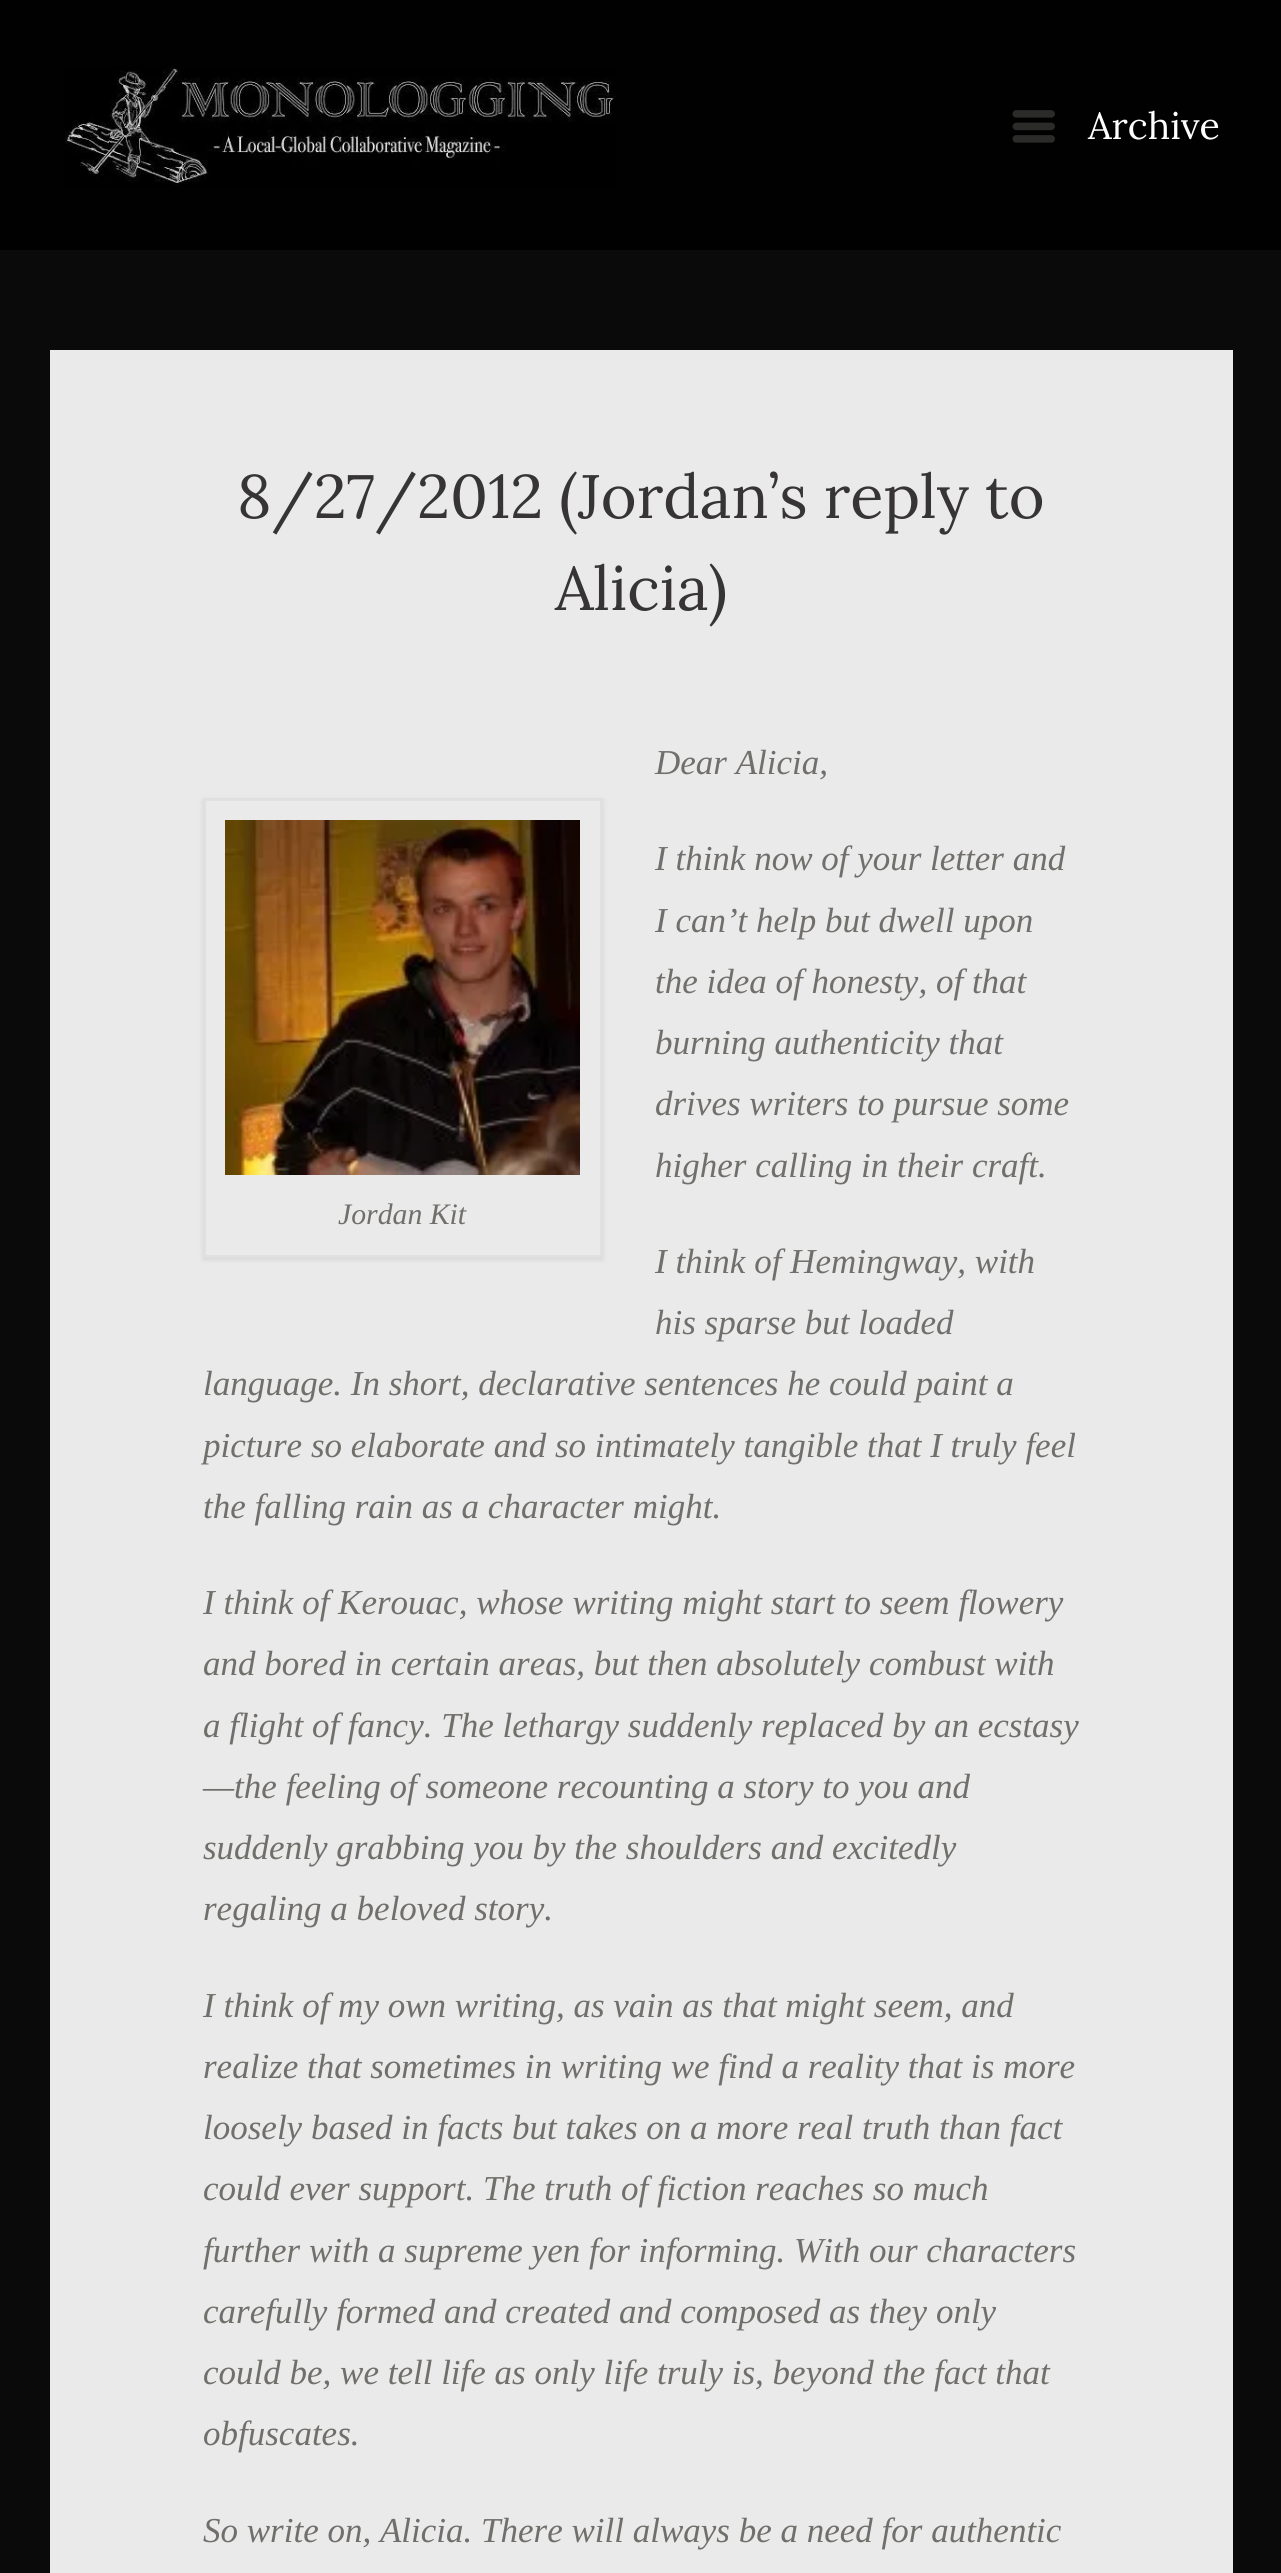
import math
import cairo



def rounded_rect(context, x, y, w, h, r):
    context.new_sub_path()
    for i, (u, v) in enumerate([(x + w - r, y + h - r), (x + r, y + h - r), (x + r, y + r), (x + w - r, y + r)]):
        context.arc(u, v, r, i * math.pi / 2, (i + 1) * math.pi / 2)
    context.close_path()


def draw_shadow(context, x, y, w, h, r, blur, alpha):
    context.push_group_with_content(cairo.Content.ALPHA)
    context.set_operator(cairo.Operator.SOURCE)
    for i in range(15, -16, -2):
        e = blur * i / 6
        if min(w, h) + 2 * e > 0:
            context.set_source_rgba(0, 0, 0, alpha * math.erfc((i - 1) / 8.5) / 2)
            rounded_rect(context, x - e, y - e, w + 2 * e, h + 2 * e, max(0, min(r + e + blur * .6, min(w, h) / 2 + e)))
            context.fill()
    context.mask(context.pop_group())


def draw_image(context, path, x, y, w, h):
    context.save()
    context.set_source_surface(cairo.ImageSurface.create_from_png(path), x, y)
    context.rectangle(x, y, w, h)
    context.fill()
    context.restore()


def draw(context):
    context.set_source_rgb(10 / 255, 10 / 255, 10 / 255)
    context.paint()
    context.set_source_rgb(1 / 255, 1 / 255, 1 / 255)
    context.rectangle(0, 0, 1281, 250)
    context.fill()
    draw_image(context, "images/1.png", 65, 66, 551, 121)
    draw_image(context, "images/2.png", 1012, 110, 43, 33)
    context.set_source_rgb(234 / 255, 234 / 255, 234 / 255)
    context.rectangle(50, 350, 1183, 2223)
    context.fill()
    context.save()
    context.set_fill_rule(cairo.FillRule.EVEN_ODD)
    context.new_path()
    context.move_to(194, 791)
    context.line_to(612, 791)
    context.line_to(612, 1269)
    context.line_to(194, 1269)
    context.close_path()
    context.move_to(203, 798)
    context.line_to(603, 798)
    context.line_to(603, 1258)
    context.line_to(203, 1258)
    context.close_path()
    context.clip()
    context.set_source_rgb(0, 0, 0)
    draw_shadow(context, 203, 800, 400, 460, 0, 2.5, 0.09)
    context.restore()
    context.rectangle(204.5, 799.5, 397, 457)
    context.set_source_rgb(224 / 255, 224 / 255, 224 / 255)
    context.set_line_width(3)
    context.stroke()
    draw_image(context, "images/3.png", 225, 820, 355, 355)
    context.select_font_face("Lora")
    context.set_font_size(37.5)
    context.set_source_rgb(1, 1, 1)
    context.move_to(1088, 139)
    context.show_text("Archive")
    context.set_font_size(61.25)
    context.set_source_rgb(55 / 255, 52 / 255, 53 / 255)
    context.move_to(237, 518)
    context.show_text("8/27/2012 (Jordan’s reply to")
    context.move_to(555, 610)
    context.show_text("Alicia)")
    context.select_font_face("Liberation Serif", cairo.FontSlant.ITALIC)
    context.set_font_size(35)
    context.set_source_rgb(113 / 255, 111 / 255, 108 / 255)
    context.move_to(655, 774)
    context.show_text("Dear Alicia,")
    context.move_to(655, 870)
    context.show_text("I think now of your letter and")
    context.move_to(655, 932)
    context.show_text("I can’t help but dwell upon")
    context.move_to(655, 993)
    context.show_text("the idea of honesty, of that")
    context.move_to(655, 1054)
    context.show_text("burning authenticity that")
    context.move_to(655, 1115)
    context.show_text("drives writers to pursue some")
    context.move_to(655, 1177)
    context.show_text("higher calling in their craft.")
    context.set_font_size(29.75)
    context.move_to(338, 1224)
    context.show_text("Jordan Kit")
    context.set_font_size(35)
    context.move_to(655, 1273)
    context.show_text("I think of Hemingway, with")
    context.move_to(655, 1334)
    context.show_text("his sparse but loaded")
    context.move_to(203, 1395)
    context.show_text("language. In short, declarative sentences he could paint a")
    context.move_to(203, 1457)
    context.show_text("picture so elaborate and so intimately tangible that I truly feel")
    context.move_to(203, 1518)
    context.show_text("the falling rain as a character might.")
    context.move_to(203, 1614)
    context.show_text("I think of Kerouac, whose writing might start to seem flowery")
    context.move_to(203, 1675)
    context.show_text("and bored in certain areas, but then absolutely combust with")
    context.move_to(203, 1737)
    context.show_text("a flight of fancy. The lethargy suddenly replaced by an ecstasy")
    context.move_to(203, 1798)
    context.show_text("—the feeling of someone recounting a story to you and")
    context.move_to(203, 1859)
    context.show_text("suddenly grabbing you by the shoulders and excitedly")
    context.move_to(203, 1920)
    context.show_text("regaling a beloved story.")
    context.move_to(203, 2017)
    context.show_text("I think of my own writing, as vain as that might seem, and")
    context.move_to(203, 2078)
    context.show_text("realize that sometimes in writing we find a reality that is more")
    context.move_to(203, 2139)
    context.show_text("loosely based in facts but takes on a more real truth than fact")
    context.move_to(203, 2200)
    context.show_text("could ever support. The truth of fiction reaches so much")
    context.move_to(203, 2262)
    context.show_text("further with a supreme yen for informing. With our characters")
    context.move_to(203, 2323)
    context.show_text("carefully formed and created and composed as they only")
    context.move_to(203, 2384)
    context.show_text("could be, we tell life as only life truly is, beyond the fact that")
    context.move_to(203, 2445)
    context.show_text("obfuscates.")
    context.move_to(203, 2542)
    context.show_text("So write on, Alicia. There will always be a need for authentic")


surface = cairo.ImageSurface(cairo.Format.RGB24, 1281, 2573)
context = cairo.Context(surface)
options = cairo.FontOptions()
options.set_hint_metrics(cairo.HintMetrics.OFF)
options.set_hint_style(cairo.HintStyle.NONE)
context.set_font_options(options)
context.set_miter_limit(4)
draw(context)
surface.write_to_png("out.png")
